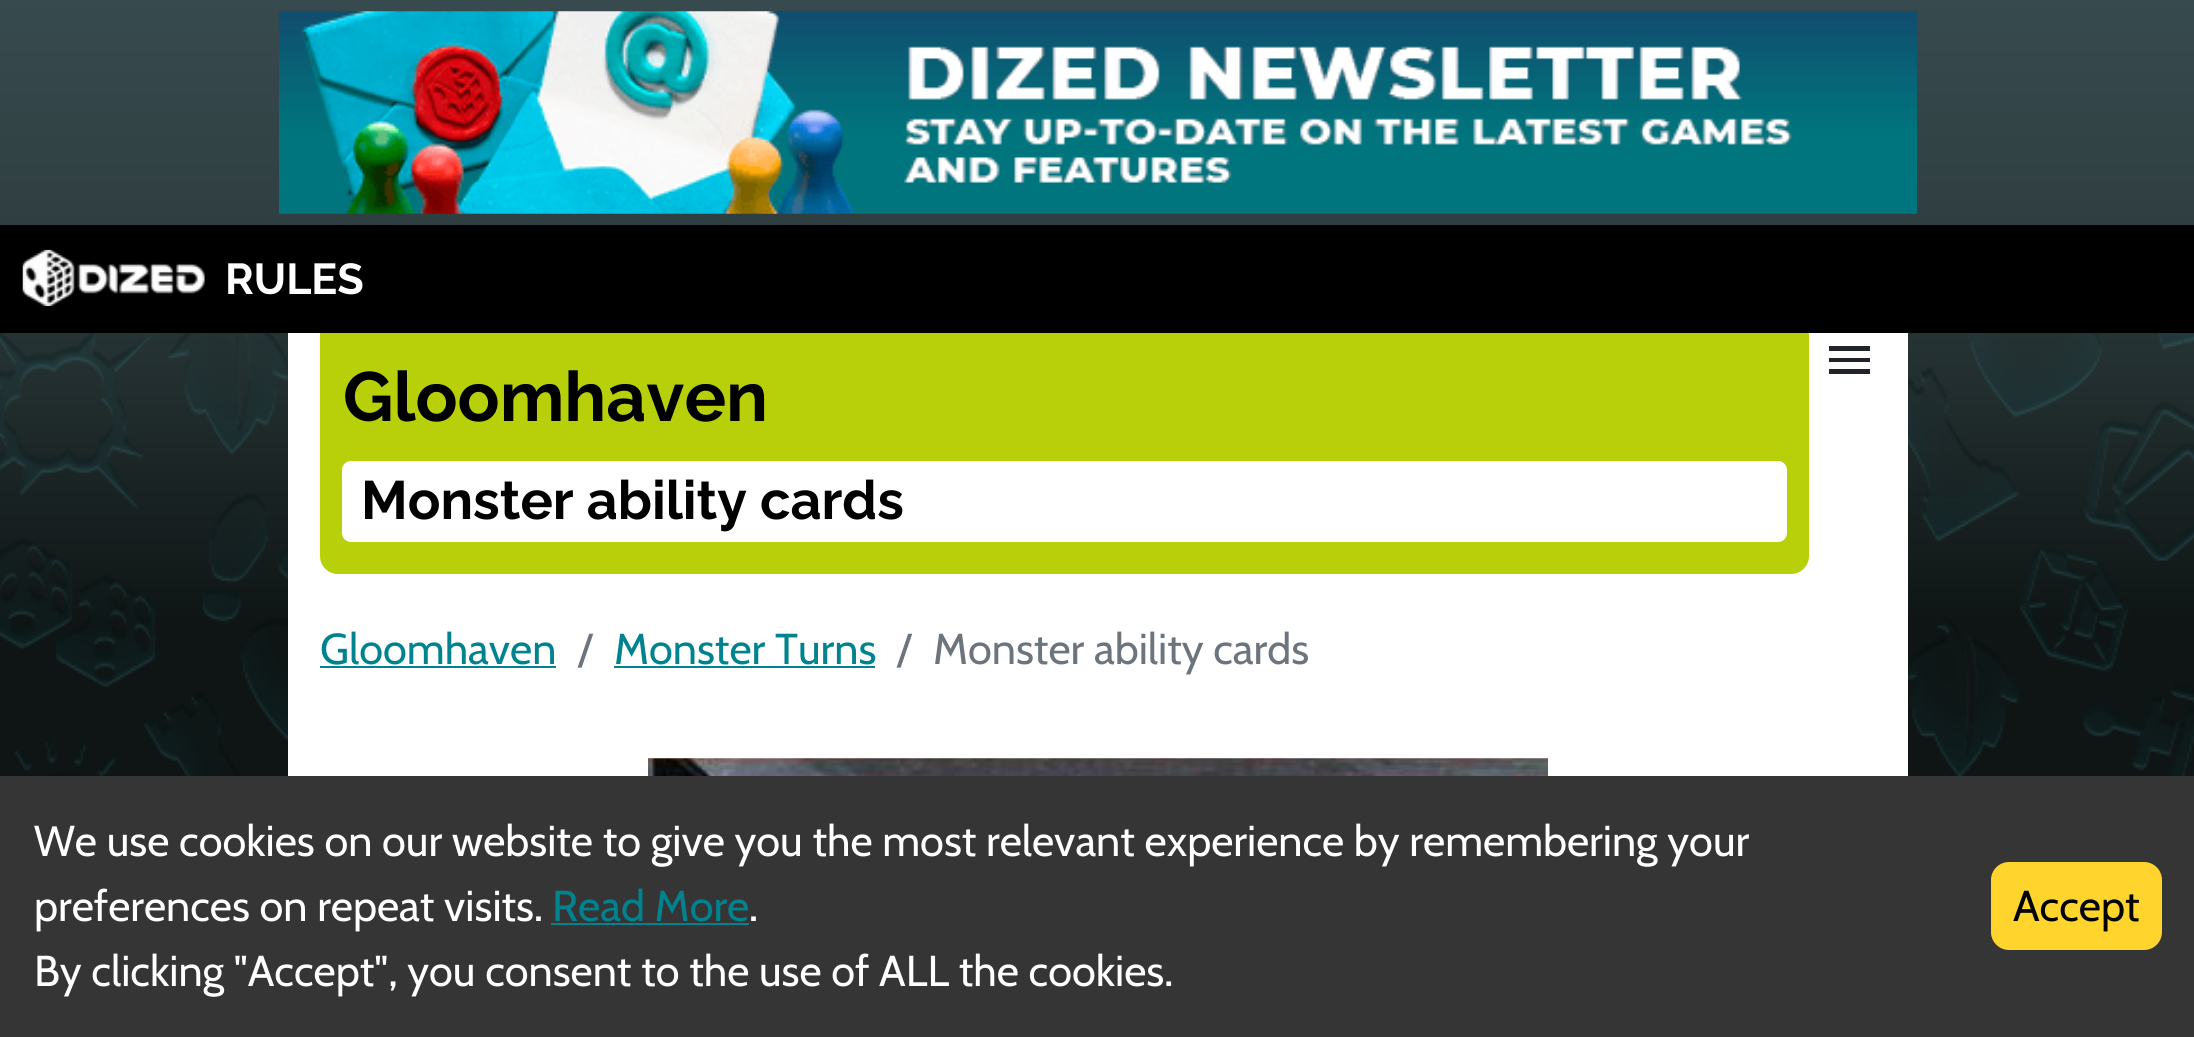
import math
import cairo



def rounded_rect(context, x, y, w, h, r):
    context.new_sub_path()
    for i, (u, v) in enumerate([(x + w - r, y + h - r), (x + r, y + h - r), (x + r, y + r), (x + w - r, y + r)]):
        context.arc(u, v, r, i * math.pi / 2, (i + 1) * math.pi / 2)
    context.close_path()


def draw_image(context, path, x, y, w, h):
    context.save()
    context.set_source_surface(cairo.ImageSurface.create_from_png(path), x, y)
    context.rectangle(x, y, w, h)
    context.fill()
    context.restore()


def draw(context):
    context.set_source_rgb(1, 1, 1)
    context.paint()
    gradient = cairo.LinearGradient(1098, 0, 1098, 1037)
    gradient.add_color_stop_rgba(0, 55 / 255, 74 / 255, 78 / 255, 1)
    gradient.add_color_stop_rgba(0.2, 48 / 255, 64 / 255, 66 / 255, 1)
    gradient.add_color_stop_rgba(0.6, 15 / 255, 21 / 255, 21 / 255, 1)
    context.set_source(gradient)
    context.rectangle(0, 0, 2194, 776)
    context.fill()
    draw_image(context, "images/1.png", 279, 11, 1638, 203)
    context.set_source_rgb(0, 0, 0)
    context.rectangle(0, 225, 2194, 108)
    context.fill()
    draw_image(context, "images/2.png", 22, 249, 183, 57)
    draw_image(context, "images/3.png", 0, 333, 2194, 443)
    context.set_source_rgb(1, 1, 1)
    context.rectangle(288, 333, 1620, 443)
    context.fill()
    context.set_source_rgb(33 / 255, 37 / 255, 41 / 255)
    context.new_path()
    context.move_to(1829, 346)
    context.line_to(1870, 346)
    context.line_to(1870, 351)
    context.line_to(1829, 351)
    context.close_path()
    context.move_to(1829, 362)
    context.line_to(1829, 358)
    context.line_to(1870, 358)
    context.line_to(1870, 362)
    context.close_path()
    context.move_to(1829, 374)
    context.line_to(1829, 369)
    context.line_to(1870, 369)
    context.line_to(1870, 374)
    context.close_path()
    context.fill()
    context.set_source_rgb(184 / 255, 208 / 255, 9 / 255)
    context.new_path()
    context.move_to(320, 333)
    context.line_to(1809, 333)
    context.line_to(1809, 556)
    context.curve_to(1809, 566, 1801, 574, 1791, 574)
    context.line_to(338, 574)
    context.curve_to(328, 574, 320, 566, 320, 556)
    context.close_path()
    context.fill()
    context.set_source_rgb(1, 1, 1)
    rounded_rect(context, 342, 461, 1445, 81, 9)
    context.fill()
    context.set_source_rgb(0, 131 / 255, 143 / 255)
    context.rectangle(320, 666, 236, 2)
    context.fill()
    context.rectangle(614, 666, 261, 2)
    context.fill()
    draw_image(context, "images/4.png", 648, 758, 900, 18)
    context.set_source_rgb(53 / 255, 53 / 255, 53 / 255)
    context.rectangle(0, 776, 2194, 261)
    context.fill()
    context.set_source_rgb(0, 131 / 255, 143 / 255)
    context.rectangle(551, 923, 198, 2)
    context.fill()
    context.set_source_rgb(1, 212 / 255, 45 / 255)
    rounded_rect(context, 1991, 862, 171, 88, 18)
    context.fill()
    context.select_font_face("Raleway", cairo.FontSlant.NORMAL, cairo.FontWeight.BOLD)
    context.set_font_size(43.2)
    context.set_source_rgb(1, 1, 1)
    context.move_to(225, 294)
    context.show_text("RULES")
    context.set_font_size(69.5)
    context.set_source_rgb(0, 0, 0)
    context.move_to(343, 421)
    context.show_text("Gloomhaven")
    context.set_font_size(54)
    context.move_to(361, 519)
    context.show_text("Monster ability cards")
    context.select_font_face("Cabin")
    context.set_font_size(43.2)
    context.set_source_rgb(0, 131 / 255, 143 / 255)
    context.move_to(320, 664)
    context.show_text("Gloomhaven")
    context.set_source_rgb(108 / 255, 117 / 255, 125 / 255)
    context.move_to(578, 664)
    context.show_text("/")
    context.set_source_rgb(0, 131 / 255, 143 / 255)
    context.move_to(614, 664)
    context.show_text("Monster Turns")
    context.set_source_rgb(108 / 255, 117 / 255, 125 / 255)
    context.move_to(897, 664)
    context.show_text("/")
    context.move_to(933, 664)
    context.show_text("Monster ability cards")
    context.set_source_rgb(1, 1, 1)
    context.move_to(34, 856)
    context.show_text("We use cookies on our website to give you the most relevant experience by remembering your")
    context.move_to(34, 921)
    context.show_text("preferences on repeat visits.")
    context.set_source_rgb(0, 131 / 255, 143 / 255)
    context.move_to(552, 921)
    context.show_text("Read More")
    context.set_source_rgb(1, 1, 1)
    context.move_to(749, 921)
    context.show_text(".")
    context.move_to(34, 986)
    context.show_text("By clicking \"Accept\", you consent to the use of ALL the cookies.")
    context.set_source_rgb(0, 0, 0)
    context.move_to(2013, 921)
    context.show_text("Accept")


surface = cairo.ImageSurface(cairo.Format.RGB24, 2194, 1037)
context = cairo.Context(surface)
options = cairo.FontOptions()
options.set_hint_metrics(cairo.HintMetrics.OFF)
options.set_hint_style(cairo.HintStyle.NONE)
context.set_font_options(options)
context.set_miter_limit(4)
draw(context)
surface.write_to_png("out.png")
